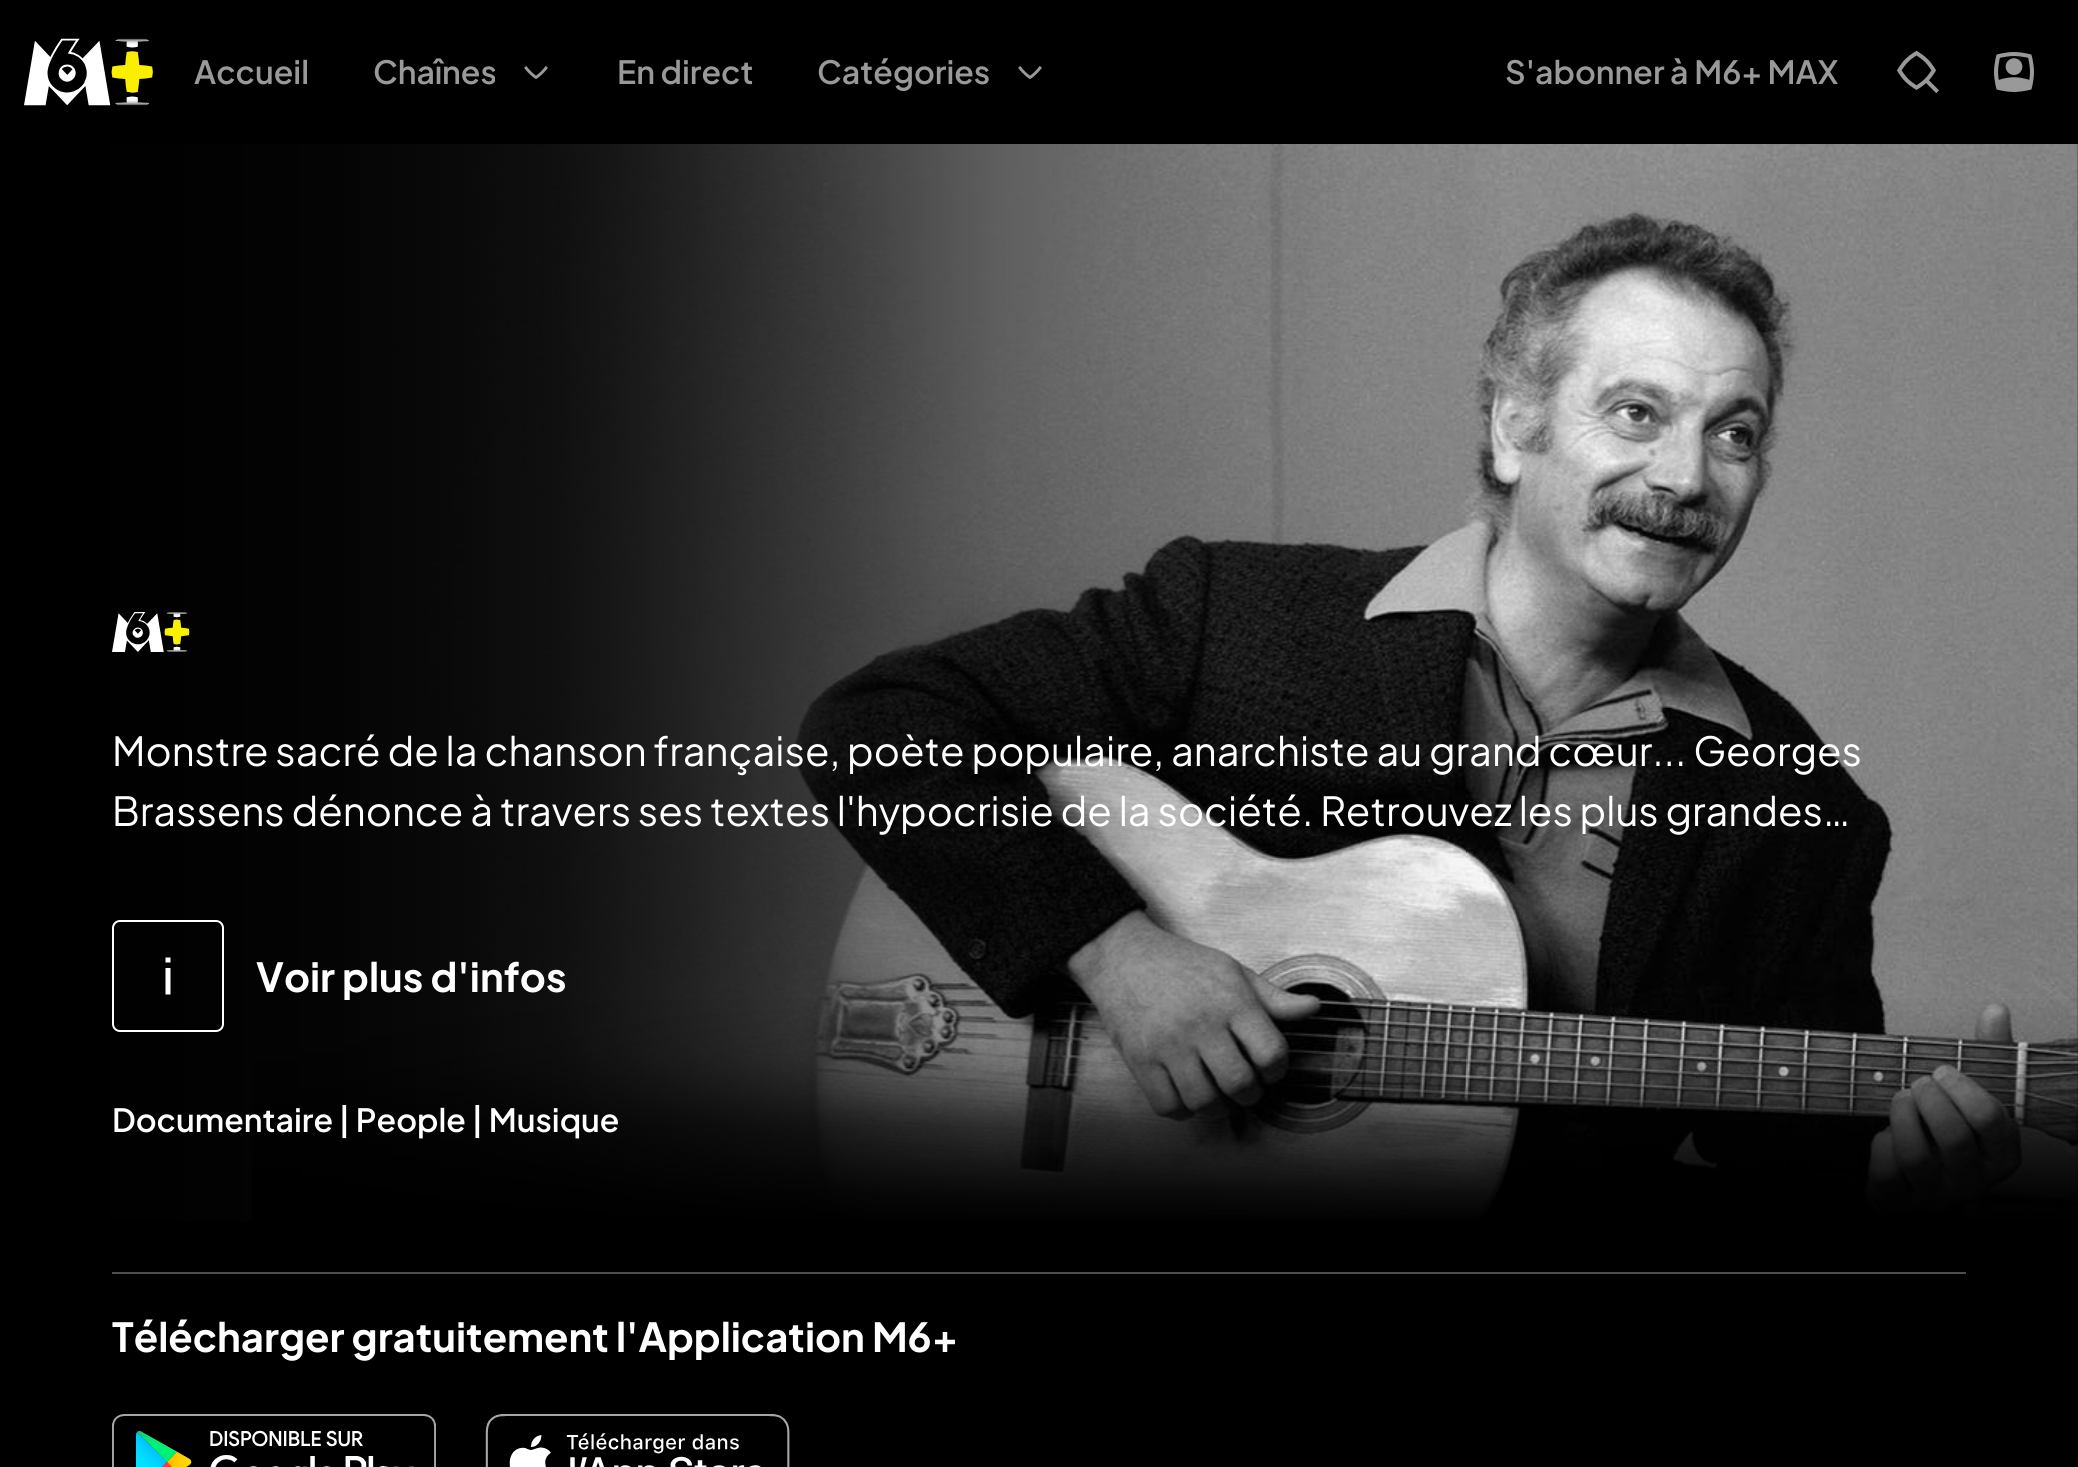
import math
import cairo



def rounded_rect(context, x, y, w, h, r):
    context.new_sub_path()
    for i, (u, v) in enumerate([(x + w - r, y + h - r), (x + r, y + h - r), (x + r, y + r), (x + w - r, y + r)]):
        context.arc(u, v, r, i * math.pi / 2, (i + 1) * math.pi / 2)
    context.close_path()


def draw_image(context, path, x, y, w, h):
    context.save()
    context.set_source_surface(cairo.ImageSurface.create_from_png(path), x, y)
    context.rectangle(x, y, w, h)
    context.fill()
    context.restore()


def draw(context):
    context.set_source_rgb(0, 0, 0)
    context.paint()
    draw_image(context, "images/1.png", 24, 38, 129, 68)
    draw_image(context, "images/2.png", 524, 66, 24, 13)
    draw_image(context, "images/2.png", 1018, 66, 24, 13)
    draw_image(context, "images/3.png", 1897, 50, 42, 44)
    draw_image(context, "images/4.png", 1994, 52, 40, 40)
    draw_image(context, "images/5.png", 110, 144, 1968, 1077)
    gradient = cairo.LinearGradient(0, 684, 2078, 684)
    gradient.add_color_stop_rgba(0, 0, 0, 0, 1)
    gradient.add_color_stop_rgba(0.09, 0, 0, 0, 0.99)
    gradient.add_color_stop_rgba(0.16, 0, 0, 0, 0.97)
    gradient.add_color_stop_rgba(0.22, 0, 0, 0, 0.93)
    gradient.add_color_stop_rgba(0.27, 0, 0, 0, 0.88)
    gradient.add_color_stop_rgba(0.3, 0, 0, 0, 0.82)
    gradient.add_color_stop_rgba(0.33, 0, 0, 0, 0.75)
    gradient.add_color_stop_rgba(0.36, 0, 0, 0, 0.67)
    gradient.add_color_stop_rgba(0.39, 0, 0, 0, 0.59)
    gradient.add_color_stop_rgba(0.42, 0, 0, 0, 0.5)
    gradient.add_color_stop_rgba(0.45, 0, 0, 0, 0.41)
    gradient.add_color_stop_rgba(0.48, 0, 0, 0, 0.33)
    gradient.add_color_stop_rgba(0.53, 0, 0, 0, 0.24)
    gradient.add_color_stop_rgba(0.59, 0, 0, 0, 0.15)
    gradient.add_color_stop_rgba(0.66, 0, 0, 0, 0.07)
    gradient.add_color_stop_rgba(0.75, 0, 0, 0, 0)
    context.set_source(gradient)
    context.rectangle(110, 144, 1391, 1077)
    context.fill()
    gradient = cairo.LinearGradient(1039, 144, 1039, 1224)
    gradient.add_color_stop_rgba(0.75, 0, 0, 0, 0)
    gradient.add_color_stop_rgba(0.78, 0, 0, 0, 0.01)
    gradient.add_color_stop_rgba(0.8, 0, 0, 0, 0.03)
    gradient.add_color_stop_rgba(0.82, 0, 0, 0, 0.07)
    gradient.add_color_stop_rgba(0.84, 0, 0, 0, 0.12)
    gradient.add_color_stop_rgba(0.85, 0, 0, 0, 0.18)
    gradient.add_color_stop_rgba(0.86, 0, 0, 0, 0.25)
    gradient.add_color_stop_rgba(0.87, 0, 0, 0, 0.33)
    gradient.add_color_stop_rgba(0.88, 0, 0, 0, 0.41)
    gradient.add_color_stop_rgba(0.89, 0, 0, 0, 0.5)
    gradient.add_color_stop_rgba(0.9, 0, 0, 0, 0.59)
    gradient.add_color_stop_rgba(0.91, 0, 0, 0, 0.67)
    gradient.add_color_stop_rgba(0.93, 0, 0, 0, 0.76)
    gradient.add_color_stop_rgba(0.95, 0, 0, 0, 0.85)
    gradient.add_color_stop_rgba(0.97, 0, 0, 0, 0.93)
    gradient.add_color_stop_rgba(1, 0, 0, 0, 1)
    context.set_source(gradient)
    context.rectangle(252, 999, 1826, 222)
    context.fill()
    draw_image(context, "images/6.png", 112, 612, 78, 40)
    rounded_rect(context, 113, 921, 110, 110, 7)
    context.set_source_rgb(1, 1, 1)
    context.stroke()
    context.new_path()
    context.move_to(170.5, 968)
    context.line_to(170.5, 994.5)
    context.line_to(165.5, 994.5)
    context.line_to(165.5, 968)
    context.close_path()
    context.move_to(170.5, 957.5)
    context.line_to(170.5, 962.5)
    context.line_to(165.5, 962.5)
    context.line_to(165.5, 957.5)
    context.close_path()
    context.fill()
    context.set_source_rgb(77 / 255, 77 / 255, 77 / 255)
    context.rectangle(112, 1272, 1854, 2)
    context.fill()
    draw_image(context, "images/7.png", 112, 1414, 324, 53)
    draw_image(context, "images/8.png", 485, 1414, 305, 53)
    context.select_font_face("Plus Jakarta Sans SemiBold")
    context.set_font_size(32)
    context.set_source_rgb(153 / 255, 153 / 255, 153 / 255)
    context.move_to(194, 84)
    context.show_text("Accueil")
    context.move_to(373, 84)
    context.show_text("Chaînes")
    context.move_to(617, 84)
    context.show_text("En direct")
    context.move_to(817, 84)
    context.show_text("Catégories")
    context.move_to(1505, 84)
    context.show_text("S'abonner à M6+ MAX")
    context.select_font_face("Plus Jakarta Sans")
    context.set_font_size(40)
    context.set_source_rgb(1, 1, 1)
    context.move_to(112, 766)
    context.show_text("Monstre sacré de la chanson française, poète populaire, anarchiste au grand cœur... Georges")
    context.move_to(112, 826)
    context.show_text("Brassens dénonce à travers ses textes l'hypocrisie de la société. Retrouvez les plus grandes…")
    context.select_font_face("Plus Jakarta Sans", cairo.FontSlant.NORMAL, cairo.FontWeight.BOLD)
    context.move_to(256, 992)
    context.show_text("Voir plus d'infos")
    context.select_font_face("Plus Jakarta Sans SemiBold")
    context.set_font_size(32)
    context.move_to(112, 1132)
    context.show_text("Documentaire | People | Musique")
    context.select_font_face("Plus Jakarta Sans", cairo.FontSlant.NORMAL, cairo.FontWeight.BOLD)
    context.set_font_size(40)
    context.move_to(112, 1352)
    context.show_text("Télécharger gratuitement l'Application M6+")


surface = cairo.ImageSurface(cairo.Format.RGB24, 2078, 1467)
context = cairo.Context(surface)
options = cairo.FontOptions()
options.set_hint_metrics(cairo.HintMetrics.OFF)
options.set_hint_style(cairo.HintStyle.NONE)
context.set_font_options(options)
context.set_miter_limit(4)
draw(context)
surface.write_to_png("out.png")
